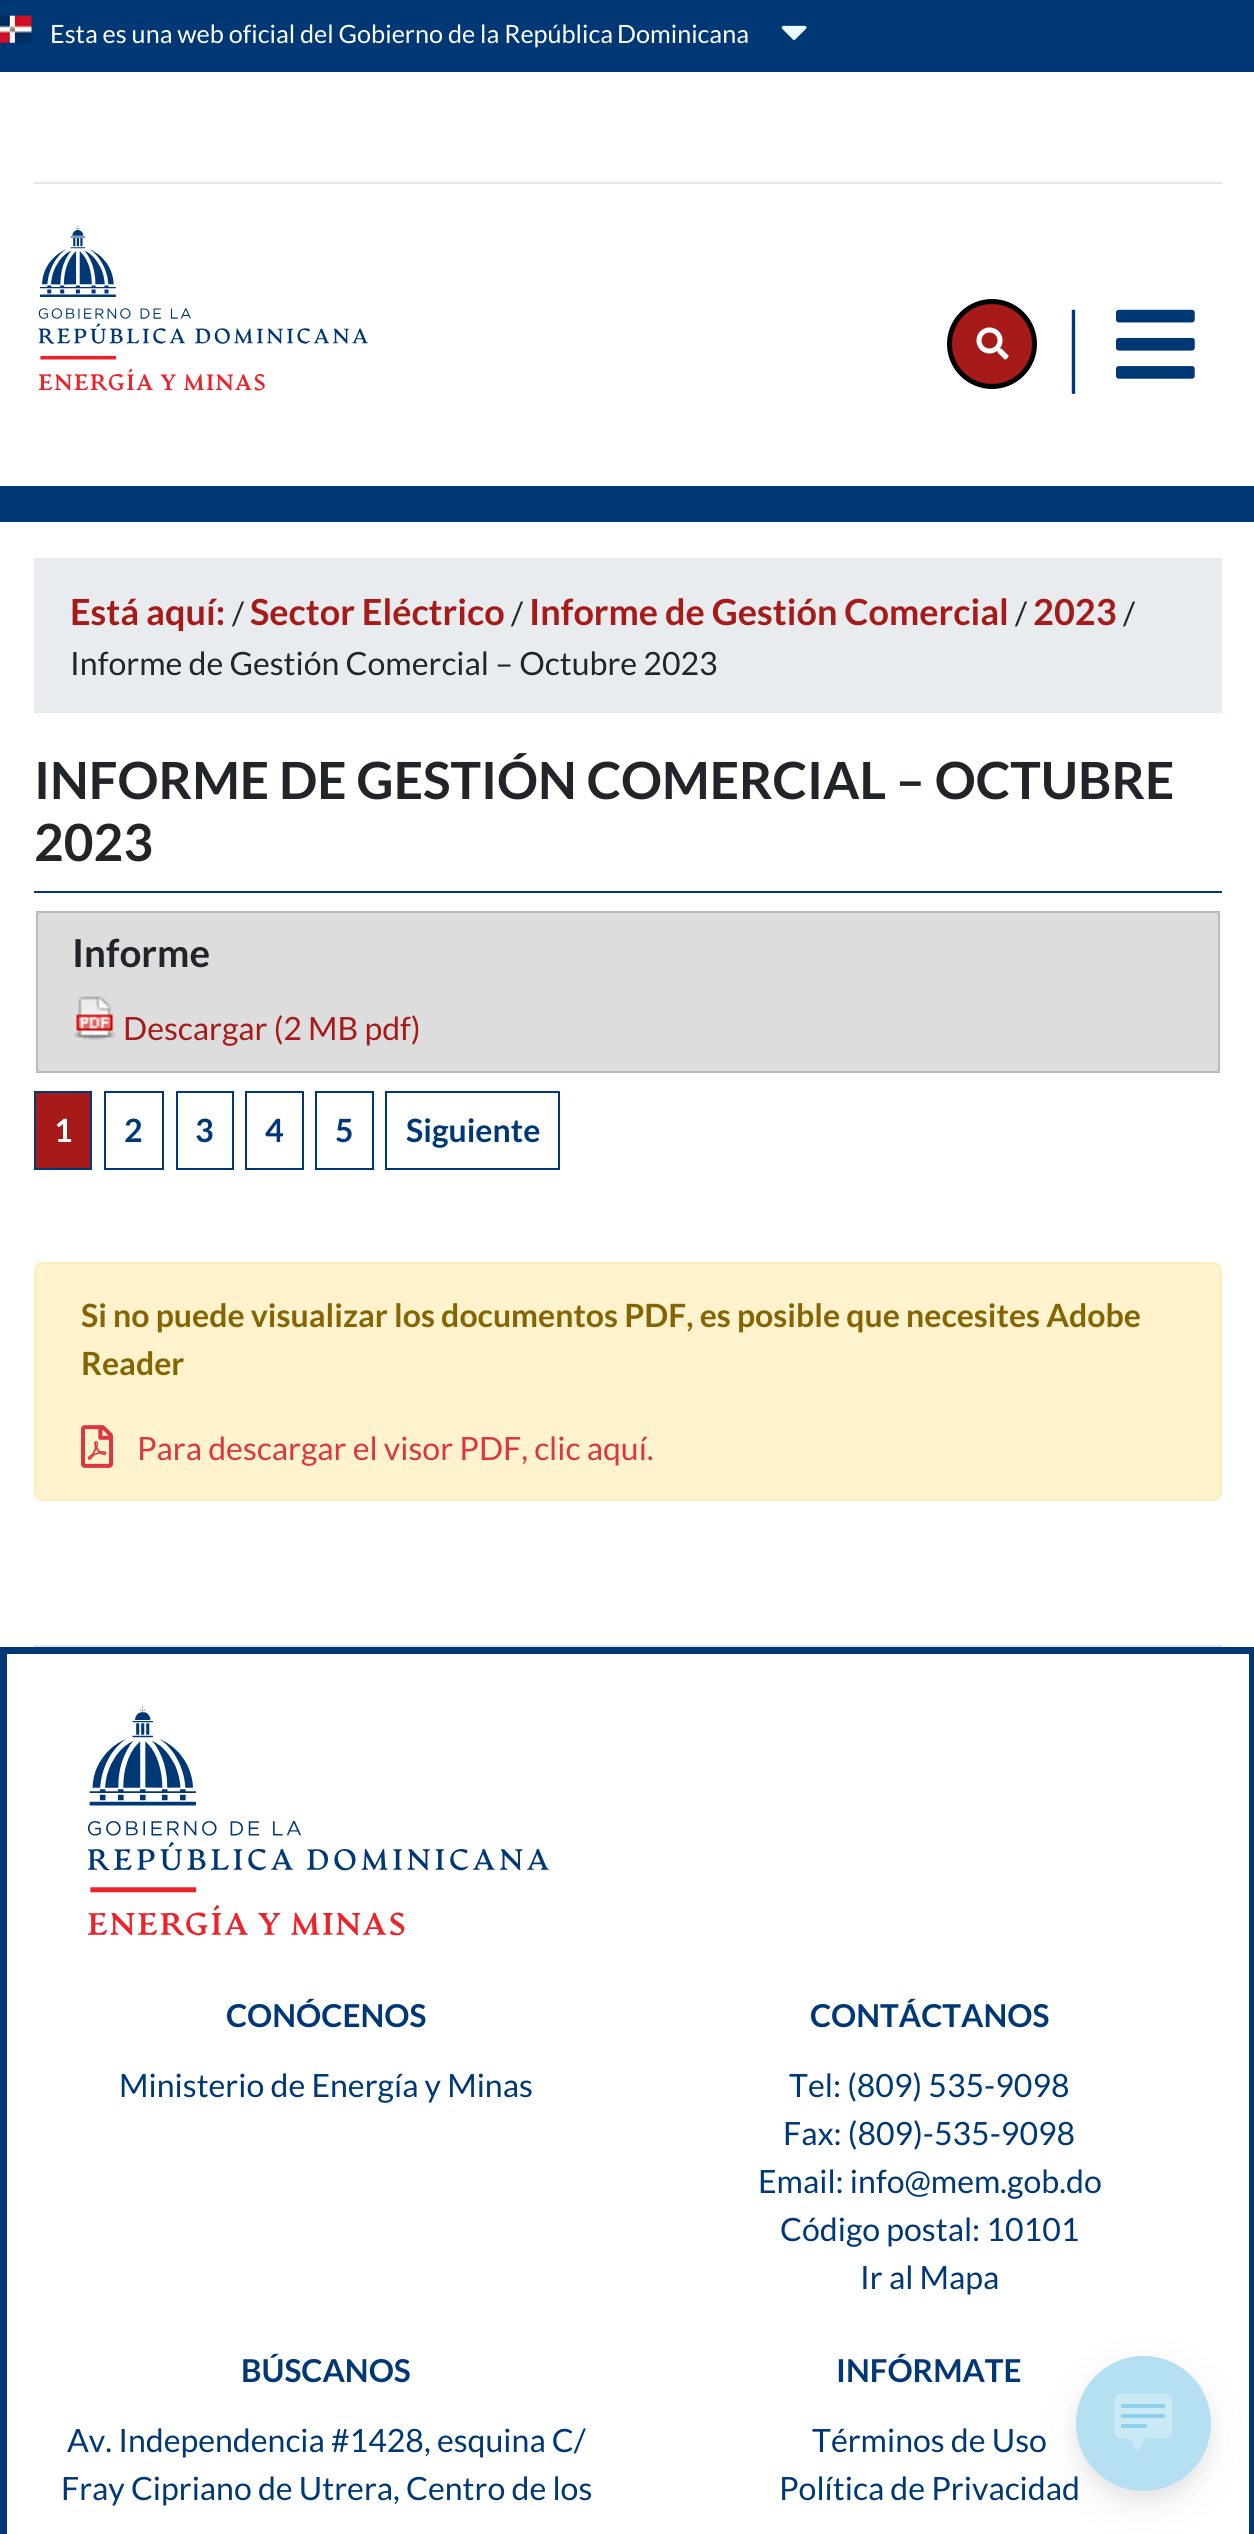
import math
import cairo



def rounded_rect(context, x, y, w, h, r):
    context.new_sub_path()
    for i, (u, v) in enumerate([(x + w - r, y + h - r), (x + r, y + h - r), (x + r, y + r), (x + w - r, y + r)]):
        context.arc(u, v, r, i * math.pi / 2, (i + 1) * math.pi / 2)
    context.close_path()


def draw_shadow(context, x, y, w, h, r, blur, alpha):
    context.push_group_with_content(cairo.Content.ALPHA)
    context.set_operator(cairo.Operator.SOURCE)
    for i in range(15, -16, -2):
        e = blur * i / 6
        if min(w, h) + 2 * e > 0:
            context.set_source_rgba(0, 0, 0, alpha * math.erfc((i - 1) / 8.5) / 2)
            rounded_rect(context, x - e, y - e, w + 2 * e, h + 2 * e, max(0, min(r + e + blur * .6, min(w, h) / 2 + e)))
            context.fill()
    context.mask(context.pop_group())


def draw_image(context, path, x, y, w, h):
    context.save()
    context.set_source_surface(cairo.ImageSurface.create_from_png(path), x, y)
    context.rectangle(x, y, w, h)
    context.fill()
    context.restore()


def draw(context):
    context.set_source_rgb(1, 1, 1)
    context.paint()
    context.set_source_rgb(0, 56 / 255, 118 / 255)
    context.rectangle(0, 0, 1254, 72)
    context.fill()
    draw_image(context, "images/1.png", 0, 15, 32, 28)
    draw_image(context, "images/2.png", 781, 25, 26, 15)
    context.set_source_rgb(230 / 255, 230 / 255, 230 / 255)
    context.rectangle(34, 182, 1188, 2)
    context.fill()
    draw_image(context, "images/3.png", 38, 226, 330, 165)
    context.set_source_rgb(166 / 255, 27 / 255, 25 / 255)
    context.arc(992, 344, 42.5, 0, 2 * math.pi)
    context.fill_preserve()
    context.set_source_rgb(0, 0, 0)
    context.set_line_width(5)
    context.stroke()
    draw_image(context, "images/4.png", 976, 327, 33, 33)
    draw_image(context, "images/5.png", 1116, 309, 79, 70)
    context.set_source_rgb(0, 56 / 255, 118 / 255)
    context.rectangle(0, 486, 1254, 36)
    context.fill()
    context.set_source_rgb(233 / 255, 236 / 255, 239 / 255)
    context.rectangle(34, 558, 1188, 155)
    context.fill()
    context.set_source_rgb(0, 56 / 255, 118 / 255)
    context.rectangle(34, 891, 1188, 2)
    context.fill()
    context.set_source_rgb(221 / 255, 221 / 255, 221 / 255)
    context.rectangle(37, 912, 1182, 160)
    context.fill_preserve()
    context.set_source_rgb(187 / 255, 187 / 255, 187 / 255)
    context.set_line_width(2)
    context.stroke()
    draw_image(context, "images/6.png", 74, 996, 42, 44)
    context.set_source_rgb(166 / 255, 27 / 255, 25 / 255)
    context.rectangle(35, 1092, 56, 77)
    context.fill_preserve()
    context.set_source_rgb(0, 56 / 255, 118 / 255)
    context.stroke()
    context.rectangle(105, 1092, 58, 77)
    context.stroke()
    context.rectangle(177, 1092, 56, 77)
    context.stroke()
    context.rectangle(246, 1092, 57, 77)
    context.stroke()
    context.rectangle(316, 1092, 57, 77)
    context.stroke()
    context.rectangle(386, 1092, 173, 77)
    context.stroke()
    context.set_source_rgb(1, 243 / 255, 205 / 255)
    rounded_rect(context, 35, 1263, 1186, 237, 8)
    context.fill_preserve()
    context.set_source_rgb(1, 238 / 255, 186 / 255)
    context.stroke()
    draw_image(context, "images/7.png", 81, 1425, 33, 43)
    context.set_source_rgb(230 / 255, 230 / 255, 230 / 255)
    context.rectangle(34, 1645, 1188, 2)
    context.fill()
    context.rectangle(3.5, 1650.5, 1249, 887)
    context.set_source_rgb(0, 56 / 255, 118 / 255)
    context.set_line_width(7)
    context.stroke()
    draw_image(context, "images/8.png", 87, 1706, 462, 230)
    context.set_source_rgb(0, 0, 0)
    draw_shadow(context, 1076, 2369, 135, 135, 67.5, 22.5, 0.06)
    draw_shadow(context, 1076, 2365, 135, 135, 67.5, 9, 0.06)
    context.select_font_face("Lato")
    context.set_font_size(25.2)
    context.set_source_rgb(1, 1, 1)
    context.move_to(50, 43)
    context.show_text("Esta es una web oficial del Gobierno de la República")
    context.move_to(617, 43)
    context.show_text("Dominicana")
    context.select_font_face("Lato Light")
    context.set_font_size(90)
    context.set_source_rgb(0, 56 / 255, 118 / 255)
    context.move_to(1060, 378)
    context.show_text("|")
    context.select_font_face("Lato", cairo.FontSlant.NORMAL, cairo.FontWeight.BOLD)
    context.set_font_size(36)
    context.set_source_rgb(166 / 255, 27 / 255, 25 / 255)
    context.move_to(70, 625)
    context.show_text("Está aquí:")
    context.select_font_face("Lato")
    context.set_font_size(32.05)
    context.set_source_rgb(33 / 255, 37 / 255, 41 / 255)
    context.move_to(232, 625)
    context.show_text("/")
    context.select_font_face("Lato", cairo.FontSlant.NORMAL, cairo.FontWeight.BOLD)
    context.set_font_size(36)
    context.set_source_rgb(166 / 255, 27 / 255, 25 / 255)
    context.move_to(250, 625)
    context.show_text("Sector Eléctrico")
    context.select_font_face("Lato")
    context.set_font_size(32.05)
    context.set_source_rgb(33 / 255, 37 / 255, 41 / 255)
    context.move_to(511, 625)
    context.show_text("/")
    context.select_font_face("Lato", cairo.FontSlant.NORMAL, cairo.FontWeight.BOLD)
    context.set_font_size(36)
    context.set_source_rgb(166 / 255, 27 / 255, 25 / 255)
    context.move_to(529, 625)
    context.show_text("Informe de Gestión Comercial")
    context.select_font_face("Lato")
    context.set_font_size(32.05)
    context.set_source_rgb(33 / 255, 37 / 255, 41 / 255)
    context.move_to(1015, 625)
    context.show_text("/")
    context.select_font_face("Lato", cairo.FontSlant.NORMAL, cairo.FontWeight.BOLD)
    context.set_font_size(36)
    context.set_source_rgb(166 / 255, 27 / 255, 25 / 255)
    context.move_to(1033, 625)
    context.show_text("2023")
    context.select_font_face("Lato")
    context.set_font_size(32.05)
    context.set_source_rgb(33 / 255, 37 / 255, 41 / 255)
    context.move_to(1123, 625)
    context.show_text("/")
    context.move_to(70, 675)
    context.show_text("Informe de Gestión Comercial – Octubre 2023")
    context.select_font_face("Lato", cairo.FontSlant.NORMAL, cairo.FontWeight.BOLD)
    context.set_font_size(51.25)
    context.move_to(34, 799)
    context.show_text("INFORME DE GESTIÓN COMERCIAL – OCTUBRE")
    context.move_to(34, 861)
    context.show_text("2023")
    context.set_font_size(38.5)
    context.move_to(72, 967)
    context.show_text("Informe")
    context.select_font_face("Lato")
    context.set_font_size(32.05)
    context.set_source_rgb(166 / 255, 27 / 255, 25 / 255)
    context.move_to(123, 1040)
    context.show_text("Descargar (2 MB pdf)")
    context.select_font_face("Lato", cairo.FontSlant.NORMAL, cairo.FontWeight.BOLD)
    context.set_source_rgb(1, 1, 1)
    context.move_to(54, 1142)
    context.show_text("1")
    context.set_source_rgb(0, 56 / 255, 118 / 255)
    context.move_to(124, 1142)
    context.show_text("2")
    context.move_to(195, 1142)
    context.show_text("3")
    context.move_to(265, 1142)
    context.show_text("4")
    context.move_to(335, 1142)
    context.show_text("5")
    context.move_to(406, 1142)
    context.show_text("Siguiente")
    context.set_source_rgb(133 / 255, 100 / 255, 4 / 255)
    context.move_to(81, 1327)
    context.show_text("Si no puede visualizar los documentos PDF, es posible que necesites Adobe")
    context.move_to(81, 1375)
    context.show_text("Reader")
    context.select_font_face("Lato")
    context.set_source_rgb(220 / 255, 53 / 255, 69 / 255)
    context.move_to(137, 1460)
    context.show_text("Para descargar el visor PDF, clic aquí.")
    context.select_font_face("Lato", cairo.FontSlant.NORMAL, cairo.FontWeight.BOLD)
    context.set_font_size(31.5)
    context.set_source_rgb(0, 56 / 255, 118 / 255)
    context.move_to(226, 2027)
    context.show_text("CONÓCENOS")
    context.select_font_face("Lato")
    context.set_font_size(32.05)
    context.move_to(119, 2097)
    context.show_text("Ministerio de Energía y Minas")
    context.select_font_face("Lato", cairo.FontSlant.NORMAL, cairo.FontWeight.BOLD)
    context.set_font_size(31.5)
    context.move_to(810, 2027)
    context.show_text("CONTÁCTANOS")
    context.select_font_face("Lato")
    context.set_font_size(32.05)
    context.move_to(789, 2097)
    context.show_text("Tel: (809) 535-9098")
    context.move_to(783, 2145)
    context.show_text("Fax: (809)-535-9098")
    context.move_to(758, 2193)
    context.show_text("Email: info@mem.gob.do")
    context.move_to(780, 2241)
    context.show_text("Código postal: 10101")
    context.move_to(860, 2289)
    context.show_text("Ir al Mapa")
    context.select_font_face("Lato", cairo.FontSlant.NORMAL, cairo.FontWeight.BOLD)
    context.set_font_size(31.5)
    context.move_to(241, 2382)
    context.show_text("BÚSCANOS")
    context.select_font_face("Lato")
    context.set_font_size(32.05)
    context.move_to(67, 2452)
    context.show_text("Av. Independencia #1428, esquina C/")
    context.move_to(61, 2500)
    context.show_text("Fray Cipriano de Utrera, Centro de los")
    context.select_font_face("Lato", cairo.FontSlant.NORMAL, cairo.FontWeight.BOLD)
    context.set_font_size(31.5)
    context.move_to(836, 2382)
    context.show_text("INFÓRMATE")
    context.select_font_face("Lato")
    context.set_font_size(32.05)
    context.move_to(812, 2452)
    context.show_text("Términos de Uso")
    context.move_to(779, 2500)
    context.show_text("Política de Privacidad")
    context.set_source_rgb(180 / 255, 224 / 255, 242 / 255)
    context.new_path()
    context.arc(1143.5, 2423.5, 67.5, 0, 2 * math.pi)
    context.fill()
    draw_image(context, "images/9.png", 1113, 2394, 60, 57)


surface = cairo.ImageSurface(cairo.Format.RGB24, 1254, 2534)
context = cairo.Context(surface)
options = cairo.FontOptions()
options.set_hint_metrics(cairo.HintMetrics.OFF)
options.set_hint_style(cairo.HintStyle.NONE)
context.set_font_options(options)
context.set_miter_limit(4)
draw(context)
surface.write_to_png("out.png")
